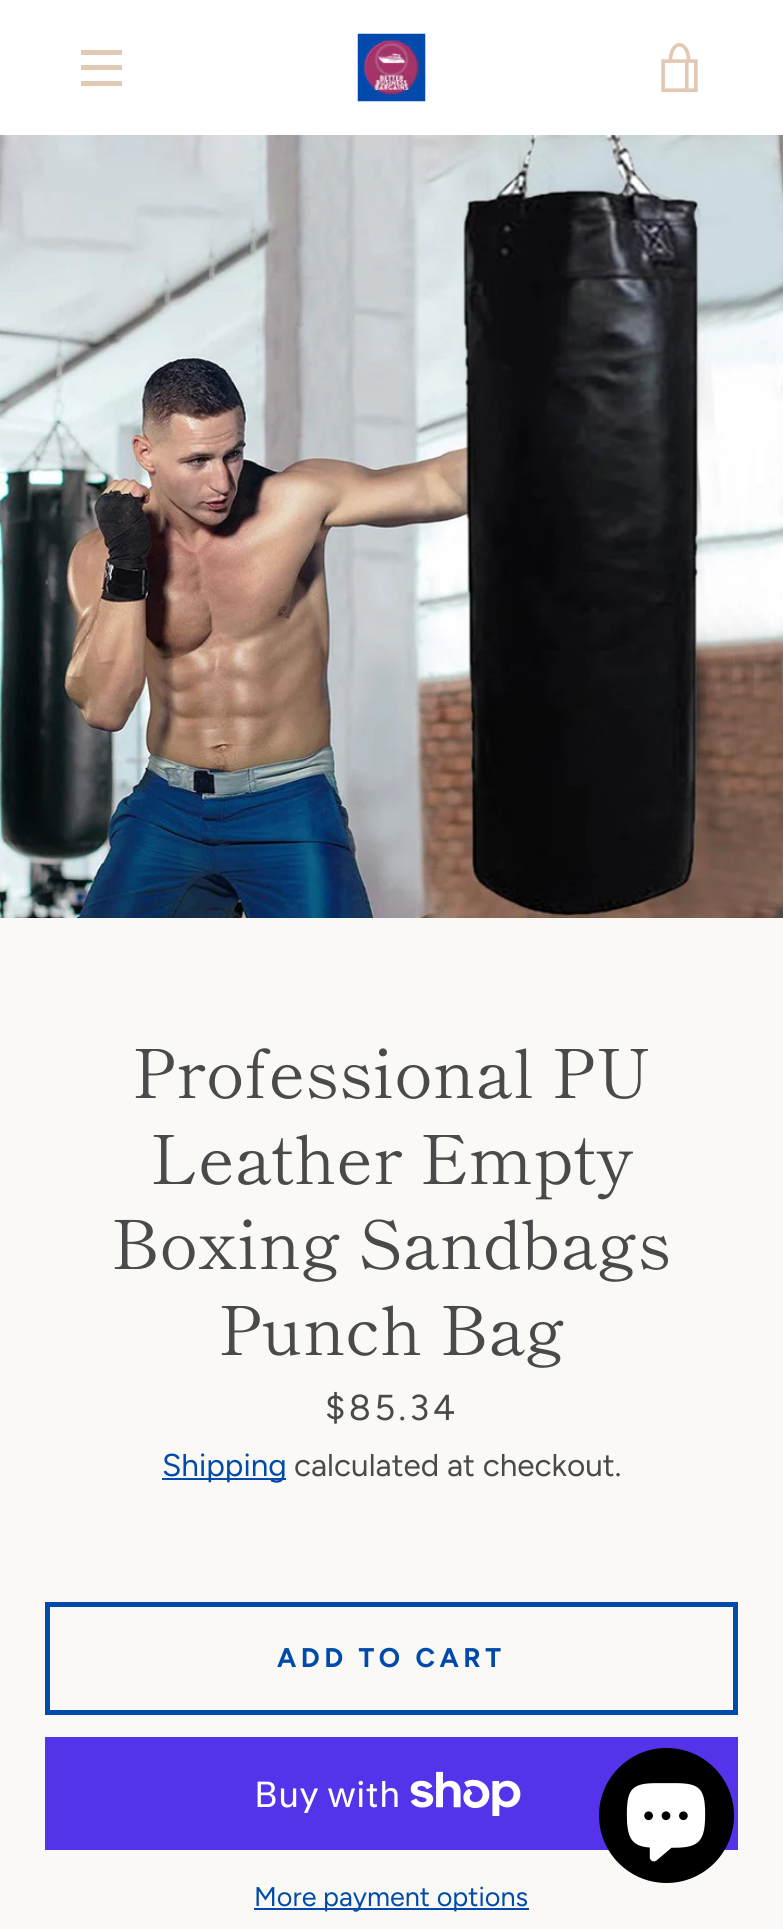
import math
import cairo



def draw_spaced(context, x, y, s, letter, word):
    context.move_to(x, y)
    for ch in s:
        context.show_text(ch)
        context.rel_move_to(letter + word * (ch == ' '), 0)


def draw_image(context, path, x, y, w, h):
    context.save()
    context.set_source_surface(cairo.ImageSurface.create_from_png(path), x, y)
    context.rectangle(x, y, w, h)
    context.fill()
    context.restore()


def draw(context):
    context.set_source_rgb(250 / 255, 249 / 255, 246 / 255)
    context.paint()
    context.set_source_rgb(1, 1, 1)
    context.rectangle(0, 0, 783, 135)
    context.fill()
    context.set_source_rgb(225 / 255, 201 / 255, 180 / 255)
    context.rectangle(81, 50, 41, 5)
    context.fill()
    context.rectangle(81, 65, 41, 5)
    context.fill()
    context.rectangle(81, 81, 41, 5)
    context.fill()
    draw_image(context, "images/1.png", 357, 33, 69, 69)
    draw_image(context, "images/2.png", 661, 42, 37, 51)
    draw_image(context, "images/3.png", 0, 135, 783, 783)
    context.set_source_rgb(0, 74 / 255, 172 / 255)
    context.rectangle(162, 1478, 124, 2)
    context.fill()
    context.rectangle(47.5, 1604.5, 688, 108)
    context.set_line_width(5)
    context.stroke()
    context.set_source_rgb(84 / 255, 51 / 255, 235 / 255)
    context.rectangle(45, 1737, 693, 113)
    context.fill()
    draw_image(context, "images/4.png", 410, 1771, 111, 45)
    context.set_source_rgb(0, 74 / 255, 172 / 255)
    context.rectangle(254, 1908, 275, 2)
    context.fill()
    context.set_source_rgb(0, 0, 0)
    context.arc(666.5, 1815.5, 67.5, 0, 2 * math.pi)
    context.fill()
    draw_image(context, "images/5.png", 626, 1783, 80, 79)
    context.select_font_face("Shippori Mincho")
    context.set_font_size(67.5)
    context.set_source_rgb(74 / 255, 74 / 255, 74 / 255)
    context.move_to(132, 1098)
    context.show_text("Professional PU")
    context.move_to(150, 1184)
    context.show_text("Leather Empty")
    context.move_to(111, 1269)
    context.show_text("Boxing Sandbags")
    context.move_to(218, 1355)
    context.show_text("Punch Bag")
    context.select_font_face("Figtree")
    context.set_font_size(36)
    draw_spaced(context, 325, 1420, "$85.34", 3.5, 0)
    context.set_font_size(31.5)
    context.set_source_rgb(0, 74 / 255, 172 / 255)
    context.move_to(162, 1476)
    context.show_text("Shipping")
    context.set_source_rgb(74 / 255, 74 / 255, 74 / 255)
    context.move_to(294, 1476)
    context.show_text("calculated at checkout.")
    context.select_font_face("Figtree", cairo.FontSlant.NORMAL, cairo.FontWeight.BOLD)
    context.set_font_size(27)
    context.set_source_rgb(0, 74 / 255, 172 / 255)
    draw_spaced(context, 277, 1667, "ADD TO CART", 4.5, 0)
    context.select_font_face("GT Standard")
    context.set_font_size(36)
    context.set_source_rgb(1, 1, 1)
    context.move_to(254, 1807)
    context.show_text("Buy with")
    context.select_font_face("Figtree")
    context.set_font_size(27)
    context.set_source_rgb(0, 74 / 255, 172 / 255)
    context.move_to(254, 1906)
    context.show_text("More payment options")


surface = cairo.ImageSurface(cairo.Format.RGB24, 783, 1929)
context = cairo.Context(surface)
options = cairo.FontOptions()
options.set_hint_metrics(cairo.HintMetrics.OFF)
options.set_hint_style(cairo.HintStyle.NONE)
context.set_font_options(options)
context.set_miter_limit(4)
draw(context)
surface.write_to_png("out.png")
